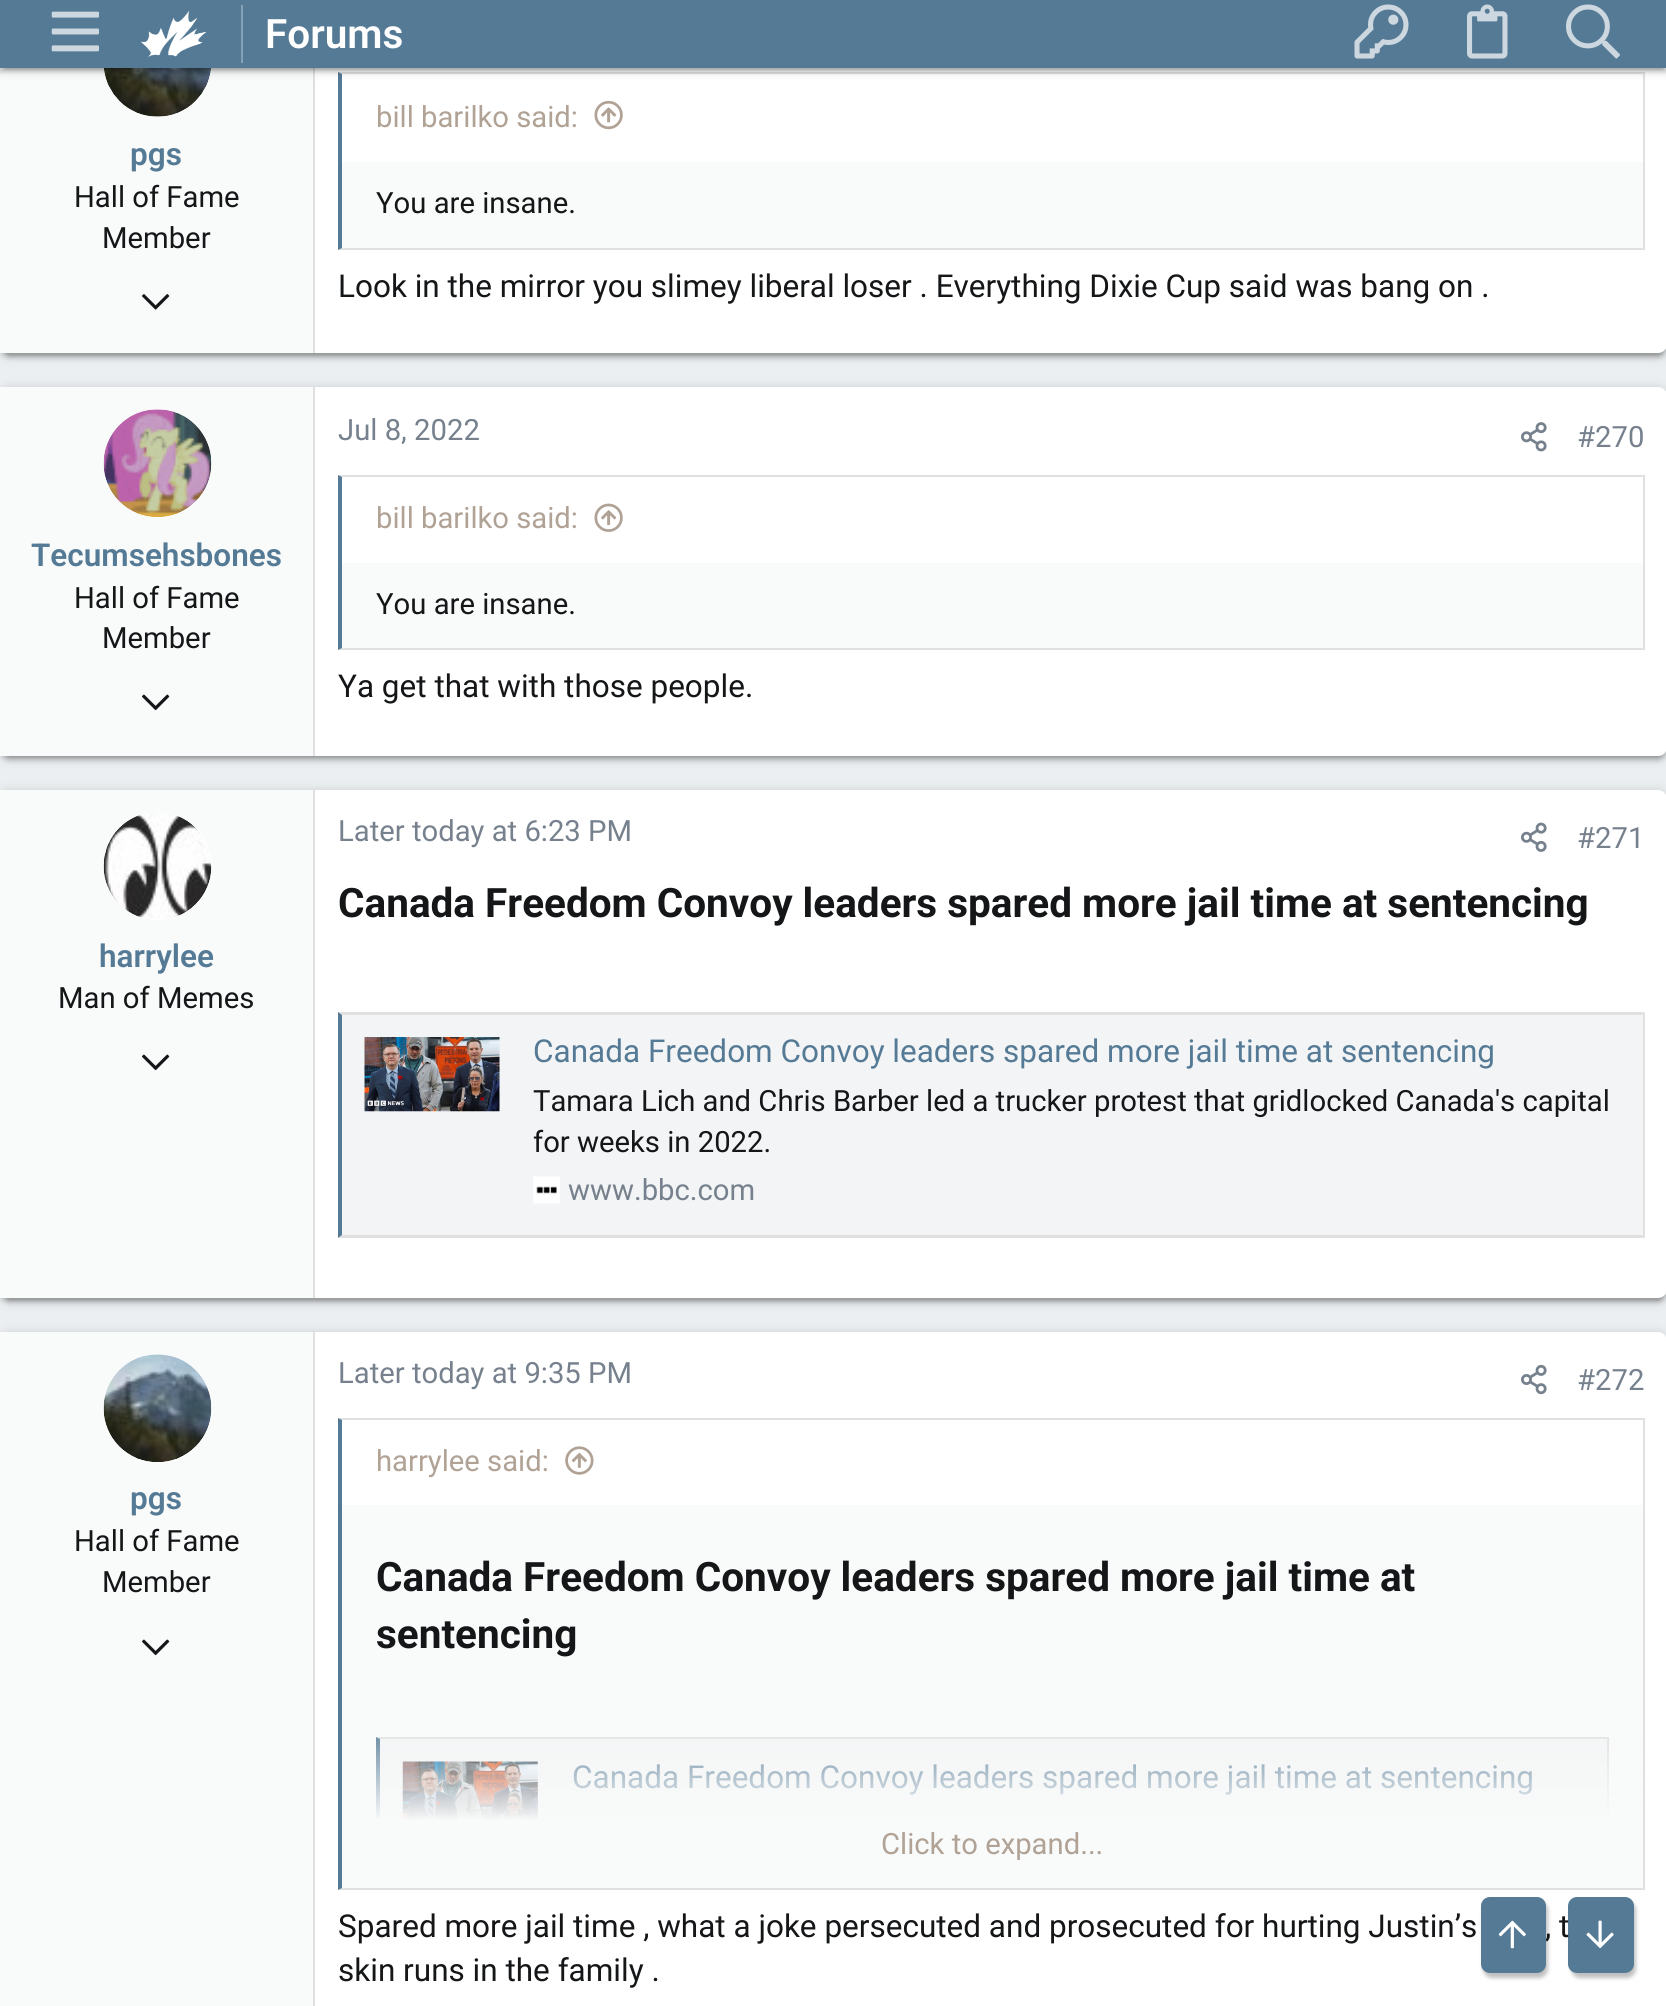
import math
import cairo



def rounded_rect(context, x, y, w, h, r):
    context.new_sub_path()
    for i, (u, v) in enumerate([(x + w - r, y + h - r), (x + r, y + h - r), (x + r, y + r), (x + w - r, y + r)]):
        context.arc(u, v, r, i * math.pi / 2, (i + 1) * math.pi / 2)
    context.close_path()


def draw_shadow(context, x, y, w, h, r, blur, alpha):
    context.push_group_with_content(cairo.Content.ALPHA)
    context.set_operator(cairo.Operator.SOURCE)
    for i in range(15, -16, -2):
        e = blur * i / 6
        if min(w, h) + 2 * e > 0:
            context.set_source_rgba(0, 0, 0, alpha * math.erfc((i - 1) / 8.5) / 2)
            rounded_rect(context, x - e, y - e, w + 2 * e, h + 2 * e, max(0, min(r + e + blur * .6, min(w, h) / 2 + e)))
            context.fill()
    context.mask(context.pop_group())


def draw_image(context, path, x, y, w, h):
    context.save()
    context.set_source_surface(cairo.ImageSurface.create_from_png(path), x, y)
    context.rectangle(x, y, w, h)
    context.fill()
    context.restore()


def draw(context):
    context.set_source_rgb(236 / 255, 239 / 255, 241 / 255)
    context.paint()
    context.set_source_rgb(0, 0, 0)
    draw_shadow(context, 0, -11, 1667, 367, 9, 5.5, 0.2)
    draw_shadow(context, 5, -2, 1658, 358, 5, 1, 0.12)
    draw_shadow(context, 0, -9, 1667, 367, 9, 2, 0.14)
    context.set_source_rgb(1, 1, 1)
    rounded_rect(context, 0, -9, 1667, 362, 9)
    context.fill()
    context.set_source_rgb(249 / 255, 250 / 255, 250 / 255)
    context.rectangle(0, 68, 313, 285)
    context.fill()
    context.set_source_rgb(224 / 255, 224 / 255, 224 / 255)
    context.rectangle(313, 68, 2, 285)
    context.fill()
    context.set_source_rgb(1, 1, 1)
    context.arc(158, 63, 54, 0, 2 * math.pi)
    context.fill()
    draw_image(context, "images/6.png", 104, 68, 107, 49)
    context.set_source_rgb(224 / 255, 224 / 255, 224 / 255)
    context.new_path()
    context.move_to(338, 72)
    context.line_to(1645, 72)
    context.line_to(1642, 74)
    context.line_to(342, 74)
    context.close_path()
    context.fill()
    context.rectangle(1643, 72, 2, 178)
    context.fill()
    context.new_path()
    context.move_to(1645, 250)
    context.line_to(338, 250)
    context.line_to(342, 248)
    context.line_to(1642, 248)
    context.close_path()
    context.fill()
    context.set_source_rgb(85 / 255, 122 / 255, 149 / 255)
    context.new_path()
    context.move_to(338, 250)
    context.line_to(338, 72)
    context.line_to(342, 74)
    context.line_to(342, 248)
    context.close_path()
    context.fill()
    context.set_source_rgb(0, 0, 0)
    draw_shadow(context, 0, 2, 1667, 68, 0, 5.5, 0.2)
    draw_shadow(context, 5, 11, 1658, 59, 0, 1, 0.12)
    draw_shadow(context, 0, 5, 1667, 67, 0, 2, 0.14)
    context.set_source_rgb(85 / 255, 122 / 255, 149 / 255)
    context.rectangle(0, 0, 1666, 68)
    context.fill()
    draw_image(context, "images/1.png", 51, 11, 48, 41)
    draw_image(context, "images/2.png", 140, 10, 67, 47)
    context.set_source_rgb(136 / 255, 162 / 255, 181 / 255)
    context.rectangle(241, 5, 2, 58)
    context.fill()
    draw_image(context, "images/3.png", 1354, 4, 55, 55)
    draw_image(context, "images/4.png", 1467, 4, 41, 55)
    draw_image(context, "images/5.png", 1566, 4, 54, 55)
    draw_image(context, "images/7.png", 142, 294, 28, 16)
    context.set_source_rgb(249 / 255, 250 / 255, 250 / 255)
    context.rectangle(342, 162, 1301, 86)
    context.fill()
    draw_image(context, "images/8.png", 594, 100, 29, 30)
    context.set_source_rgb(0, 0, 0)
    draw_shadow(context, 0, 389, 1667, 369, 9, 5.5, 0.2)
    draw_shadow(context, 5, 398, 1658, 360, 5, 1, 0.12)
    draw_shadow(context, 0, 392, 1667, 369, 9, 2, 0.14)
    context.set_source_rgb(1, 1, 1)
    rounded_rect(context, 0, 387, 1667, 369, 9)
    context.fill()
    context.set_source_rgb(249 / 255, 250 / 255, 250 / 255)
    context.rectangle(0, 387, 313, 369)
    context.fill()
    context.set_source_rgb(224 / 255, 224 / 255, 224 / 255)
    context.rectangle(313, 387, 2, 369)
    context.fill()
    context.set_source_rgb(1, 1, 1)
    context.arc(158, 464, 54, 0, 2 * math.pi)
    context.fill()
    draw_image(context, "images/9.png", 103, 409, 109, 108)
    draw_image(context, "images/10.png", 142, 694, 28, 17)
    draw_image(context, "images/11.png", 1521, 422, 26, 30)
    context.set_source_rgb(249 / 255, 250 / 255, 250 / 255)
    context.rectangle(342, 563, 1301, 85)
    context.fill()
    context.set_source_rgb(224 / 255, 224 / 255, 224 / 255)
    context.new_path()
    context.move_to(338, 475)
    context.line_to(1645, 475)
    context.line_to(1642, 477)
    context.line_to(342, 477)
    context.close_path()
    context.fill()
    context.rectangle(1643, 475, 2, 175)
    context.fill()
    context.new_path()
    context.move_to(1645, 650)
    context.line_to(338, 650)
    context.line_to(342, 648)
    context.line_to(1642, 648)
    context.close_path()
    context.fill()
    context.set_source_rgb(85 / 255, 122 / 255, 149 / 255)
    context.new_path()
    context.move_to(338, 650)
    context.line_to(338, 475)
    context.line_to(342, 477)
    context.line_to(342, 648)
    context.close_path()
    context.fill()
    draw_image(context, "images/12.png", 594, 503, 29, 29)
    context.set_source_rgb(0, 0, 0)
    draw_shadow(context, 0, 792, 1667, 509, 9, 5.5, 0.2)
    draw_shadow(context, 5, 801, 1658, 500, 5, 1, 0.12)
    draw_shadow(context, 0, 794, 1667, 509, 9, 2, 0.14)
    context.set_source_rgb(1, 1, 1)
    rounded_rect(context, 0, 790, 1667, 508, 9)
    context.fill()
    context.set_source_rgb(249 / 255, 250 / 255, 250 / 255)
    context.rectangle(0, 790, 313, 508)
    context.fill()
    context.set_source_rgb(224 / 255, 224 / 255, 224 / 255)
    context.rectangle(313, 790, 2, 508)
    context.fill()
    context.set_source_rgb(1, 1, 1)
    context.arc(158, 866, 54, 0, 2 * math.pi)
    context.fill()
    draw_image(context, "images/13.png", 103, 812, 109, 107)
    draw_image(context, "images/10.png", 142, 1054, 28, 17)
    draw_image(context, "images/14.png", 1521, 822, 26, 30)
    context.set_source_rgb(243 / 255, 244 / 255, 245 / 255)
    context.rectangle(342, 1015, 1301, 220)
    context.fill()
    context.set_source_rgb(224 / 255, 224 / 255, 224 / 255)
    context.new_path()
    context.move_to(338, 1012)
    context.line_to(1645, 1012)
    context.line_to(1642, 1015)
    context.line_to(342, 1015)
    context.close_path()
    context.fill()
    context.rectangle(1643, 1013, 2, 225)
    context.fill()
    context.new_path()
    context.move_to(1645, 1238)
    context.line_to(338, 1238)
    context.line_to(342, 1235)
    context.line_to(1642, 1235)
    context.close_path()
    context.fill()
    context.set_source_rgb(85 / 255, 122 / 255, 149 / 255)
    context.new_path()
    context.move_to(338, 1238)
    context.line_to(338, 1012)
    context.line_to(342, 1015)
    context.line_to(342, 1235)
    context.close_path()
    context.fill()
    draw_image(context, "images/15.png", 364, 1037, 136, 75)
    draw_image(context, "images/16.png", 533, 1176, 27, 28)
    context.set_source_rgb(0, 0, 0)
    draw_shadow(context, 0, 1334, 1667, 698, 9, 5.5, 0.2)
    context.set_source_rgb(1, 1, 1)
    rounded_rect(context, 0, 1332, 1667, 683, 9)
    context.fill()
    context.set_source_rgb(249 / 255, 250 / 255, 250 / 255)
    context.rectangle(0, 1332, 313, 674)
    context.fill()
    context.set_source_rgb(224 / 255, 224 / 255, 224 / 255)
    context.rectangle(313, 1332, 2, 674)
    context.fill()
    context.set_source_rgb(1, 1, 1)
    context.arc(158, 1409, 54, 0, 2 * math.pi)
    context.fill()
    draw_image(context, "images/17.png", 103, 1354, 109, 108)
    draw_image(context, "images/10.png", 142, 1639, 28, 17)
    draw_image(context, "images/18.png", 1521, 1364, 26, 31)
    context.set_source_rgb(249 / 255, 250 / 255, 250 / 255)
    context.rectangle(342, 1505, 1301, 315)
    context.fill()
    context.set_source_rgb(224 / 255, 224 / 255, 224 / 255)
    context.new_path()
    context.move_to(338, 1418)
    context.line_to(1645, 1418)
    context.line_to(1642, 1420)
    context.line_to(342, 1420)
    context.close_path()
    context.fill()
    context.rectangle(1643, 1418, 2, 472)
    context.fill()
    context.new_path()
    context.move_to(1645, 1890)
    context.line_to(338, 1890)
    context.line_to(342, 1888)
    context.line_to(1642, 1888)
    context.close_path()
    context.fill()
    context.set_source_rgb(85 / 255, 122 / 255, 149 / 255)
    context.new_path()
    context.move_to(338, 1890)
    context.line_to(338, 1418)
    context.line_to(342, 1420)
    context.line_to(342, 1888)
    context.close_path()
    context.fill()
    draw_image(context, "images/19.png", 565, 1446, 29, 29)
    context.set_source_rgb(243 / 255, 244 / 255, 245 / 255)
    context.rectangle(380, 1739, 1227, 81)
    context.fill()
    context.set_source_rgb(224 / 255, 224 / 255, 224 / 255)
    context.new_path()
    context.move_to(376, 1737)
    context.line_to(1609, 1737)
    context.line_to(1606, 1739)
    context.line_to(380, 1739)
    context.close_path()
    context.fill()
    context.rectangle(1607, 1737, 2, 83)
    context.fill()
    context.save()
    context.rectangle(376, 1528, 1233, 337)
    context.clip()
    context.set_source_rgb(85 / 255, 122 / 255, 149 / 255)
    context.new_path()
    context.move_to(376, 1962)
    context.line_to(376, 1737)
    context.line_to(380, 1739)
    context.line_to(380, 1960)
    context.close_path()
    context.fill()
    context.restore()
    draw_image(context, "images/20.png", 402, 1761, 136, 59)
    context.set_source_rgb(0, 0, 0)
    draw_shadow(context, 1483, 1901, 65, 77, 9, 2, 0.25)
    draw_shadow(context, 1571, 1901, 65, 77, 9, 2, 0.25)
    context.set_source_rgb(85 / 255, 122 / 255, 149 / 255)
    rounded_rect(context, 1568, 1897, 66, 76, 9)
    context.fill()
    draw_image(context, "images/22.png", 1586, 1920, 28, 29)
    context.select_font_face("Roboto SemiBold")
    context.set_font_size(40.5)
    context.set_source_rgb(1, 1, 1)
    context.move_to(265, 48)
    context.show_text("Forums")
    context.set_font_size(31.5)
    context.set_source_rgb(85 / 255, 122 / 255, 149 / 255)
    context.move_to(130, 165)
    context.show_text("pgs")
    context.select_font_face("Roboto")
    context.set_font_size(29.25)
    context.set_source_rgb(20 / 255, 22 / 255, 24 / 255)
    context.move_to(74, 207)
    context.show_text("Hall of Fame")
    context.move_to(102, 248)
    context.show_text("Member")
    context.set_source_rgb(177 / 255, 162 / 255, 150 / 255)
    context.move_to(376, 127)
    context.show_text("bill barilko said:")
    context.set_source_rgb(20 / 255, 22 / 255, 24 / 255)
    context.move_to(376, 213)
    context.show_text("You are insane.")
    context.set_font_size(31.5)
    context.move_to(338, 297)
    context.show_text("Look in the mirror you slimey liberal loser . Everything Dixie Cup said was bang on .")
    context.select_font_face("Roboto SemiBold")
    context.set_source_rgb(85 / 255, 122 / 255, 149 / 255)
    context.move_to(31, 566)
    context.show_text("Tecumsehsbones")
    context.select_font_face("Roboto")
    context.set_font_size(29.25)
    context.set_source_rgb(20 / 255, 22 / 255, 24 / 255)
    context.move_to(74, 608)
    context.show_text("Hall of Fame")
    context.move_to(102, 648)
    context.show_text("Member")
    context.set_source_rgb(118 / 255, 129 / 255, 141 / 255)
    context.move_to(338, 440)
    context.show_text("Jul 8, 2022")
    context.move_to(1577, 447)
    context.show_text("#270")
    context.set_source_rgb(177 / 255, 162 / 255, 150 / 255)
    context.move_to(376, 528)
    context.show_text("bill barilko said:")
    context.set_source_rgb(20 / 255, 22 / 255, 24 / 255)
    context.move_to(376, 614)
    context.show_text("You are insane.")
    context.set_font_size(31.5)
    context.move_to(338, 697)
    context.show_text("Ya get that with those people.")
    context.select_font_face("Roboto SemiBold")
    context.set_source_rgb(85 / 255, 122 / 255, 149 / 255)
    context.move_to(99, 967)
    context.show_text("harrylee")
    context.select_font_face("Roboto")
    context.set_font_size(29.25)
    context.set_source_rgb(20 / 255, 22 / 255, 24 / 255)
    context.move_to(58, 1008)
    context.show_text("Man of Memes")
    context.set_source_rgb(118 / 255, 129 / 255, 141 / 255)
    context.move_to(338, 841)
    context.show_text("Later today at 6:23 PM")
    context.move_to(1577, 848)
    context.show_text("#271")
    context.select_font_face("Roboto", cairo.FontSlant.NORMAL, cairo.FontWeight.BOLD)
    context.set_font_size(40.5)
    context.set_source_rgb(20 / 255, 22 / 255, 24 / 255)
    context.move_to(338, 917)
    context.show_text("Canada Freedom Convoy leaders spared more jail time at sentencing")
    context.select_font_face("Roboto")
    context.set_font_size(31.5)
    context.set_source_rgb(85 / 255, 122 / 255, 149 / 255)
    context.move_to(533, 1062)
    context.show_text("Canada Freedom Convoy leaders spared more jail time at sentencing")
    context.set_font_size(29.25)
    context.set_source_rgb(20 / 255, 22 / 255, 24 / 255)
    context.move_to(533, 1111)
    context.show_text("Tamara Lich and Chris Barber led a trucker protest that gridlocked Canada's capital")
    context.move_to(533, 1152)
    context.show_text("for weeks in 2022.")
    context.set_source_rgb(118 / 255, 129 / 255, 141 / 255)
    context.move_to(568, 1200)
    context.show_text("www.bbc.com")
    context.select_font_face("Roboto SemiBold")
    context.set_font_size(31.5)
    context.set_source_rgb(85 / 255, 122 / 255, 149 / 255)
    context.move_to(130, 1509)
    context.show_text("pgs")
    context.select_font_face("Roboto")
    context.set_font_size(29.25)
    context.set_source_rgb(20 / 255, 22 / 255, 24 / 255)
    context.move_to(74, 1551)
    context.show_text("Hall of Fame")
    context.move_to(102, 1592)
    context.show_text("Member")
    context.set_source_rgb(118 / 255, 129 / 255, 141 / 255)
    context.move_to(338, 1383)
    context.show_text("Later today at 9:35 PM")
    context.move_to(1577, 1390)
    context.show_text("#272")
    context.set_source_rgb(177 / 255, 162 / 255, 150 / 255)
    context.move_to(376, 1471)
    context.show_text("harrylee said:")
    context.select_font_face("Roboto", cairo.FontSlant.NORMAL, cairo.FontWeight.BOLD)
    context.set_font_size(40.5)
    context.set_source_rgb(20 / 255, 22 / 255, 24 / 255)
    context.move_to(376, 1591)
    context.show_text("Canada Freedom Convoy leaders spared more jail time at")
    context.move_to(376, 1648)
    context.show_text("sentencing")
    context.select_font_face("Roboto")
    context.set_font_size(31.5)
    context.set_source_rgb(85 / 255, 122 / 255, 149 / 255)
    context.move_to(572, 1788)
    context.show_text("Canada Freedom Convoy leaders spared more jail time at sentencing")
    gradient = cairo.LinearGradient(992, 1719, 992, 1888)
    gradient.add_color_stop_rgba(0, 249 / 255, 250 / 255, 250 / 255, 0)
    gradient.add_color_stop_rgba(0.6, 249 / 255, 250 / 255, 250 / 255, 1)
    context.set_source(gradient)
    context.rectangle(342, 1737, 1301, 151)
    context.fill()
    context.set_font_size(29.25)
    context.set_source_rgb(177 / 255, 162 / 255, 150 / 255)
    context.move_to(881, 1854)
    context.show_text("Click to expand...")
    context.set_font_size(31.5)
    context.set_source_rgb(20 / 255, 22 / 255, 24 / 255)
    context.move_to(338, 1937)
    context.show_text("Spared more jail time , what a joke persecuted and prosecuted for hurting Justin’s")
    context.move_to(1545, 1937)
    context.show_text(", t")
    context.move_to(338, 1981)
    context.show_text("skin runs in the family .")
    context.set_source_rgb(85 / 255, 122 / 255, 149 / 255)
    rounded_rect(context, 1481, 1897, 65, 76, 9)
    context.fill()
    draw_image(context, "images/21.png", 1498, 1920, 28, 29)


surface = cairo.ImageSurface(cairo.Format.RGB24, 1666, 2006)
context = cairo.Context(surface)
options = cairo.FontOptions()
options.set_hint_metrics(cairo.HintMetrics.OFF)
options.set_hint_style(cairo.HintStyle.NONE)
context.set_font_options(options)
context.set_miter_limit(4)
draw(context)
surface.write_to_png("out.png")
